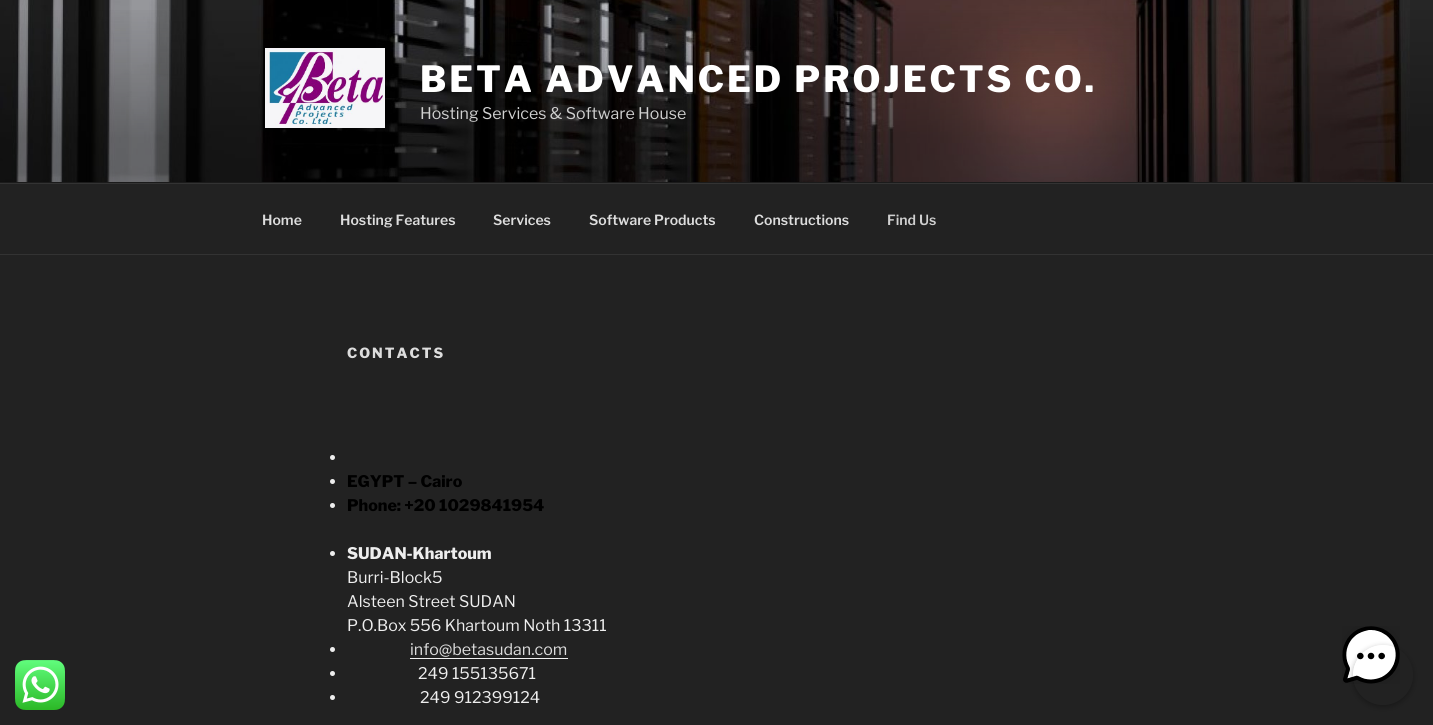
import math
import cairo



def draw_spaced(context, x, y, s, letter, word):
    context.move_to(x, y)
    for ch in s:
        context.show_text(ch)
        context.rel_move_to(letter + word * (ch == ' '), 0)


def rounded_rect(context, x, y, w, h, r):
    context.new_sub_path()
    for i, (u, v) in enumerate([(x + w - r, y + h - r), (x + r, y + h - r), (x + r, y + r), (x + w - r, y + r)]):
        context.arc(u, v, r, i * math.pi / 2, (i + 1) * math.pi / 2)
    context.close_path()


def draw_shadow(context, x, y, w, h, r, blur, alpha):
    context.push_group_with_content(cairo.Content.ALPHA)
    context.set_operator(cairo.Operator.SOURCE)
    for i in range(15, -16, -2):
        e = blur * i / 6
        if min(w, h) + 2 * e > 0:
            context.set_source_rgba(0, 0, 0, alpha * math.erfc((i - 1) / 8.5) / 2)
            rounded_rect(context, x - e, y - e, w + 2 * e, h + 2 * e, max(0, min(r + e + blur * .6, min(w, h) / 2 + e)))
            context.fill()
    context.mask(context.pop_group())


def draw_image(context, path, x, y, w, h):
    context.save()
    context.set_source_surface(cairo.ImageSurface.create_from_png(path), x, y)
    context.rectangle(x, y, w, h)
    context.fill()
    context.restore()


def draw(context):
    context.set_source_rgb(34 / 255, 34 / 255, 34 / 255)
    context.paint()
    context.set_source_rgb(38 / 255, 38 / 255, 38 / 255)
    context.rectangle(0, 0, 1433, 183)
    context.fill()
    draw_image(context, "images/1.png", 0, 0, 1410, 182)
    gradient = cairo.LinearGradient(717, 0, 717, 183)
    gradient.add_color_stop_rgba(0, 0, 0, 0, 0)
    gradient.add_color_stop_rgba(0.75, 0, 0, 0, 0.3)
    gradient.add_color_stop_rgba(1, 0, 0, 0, 0.3)
    context.set_source(gradient)
    context.rectangle(0, 10, 1433, 173)
    context.fill()
    draw_image(context, "images/2.png", 265, 48, 120, 80)
    context.set_source_rgb(51 / 255, 51 / 255, 51 / 255)
    context.rectangle(0, 183, 1433, 1)
    context.fill()
    context.rectangle(0, 254, 1433, 1)
    context.fill()
    context.set_source_rgb(238 / 255, 238 / 255, 238 / 255)
    context.arc(332.5, 457.5, 2.5, 0, 2 * math.pi)
    context.fill()
    context.arc(332.5, 481.5, 2.5, 0, 2 * math.pi)
    context.fill()
    context.arc(332.5, 505.5, 2.5, 0, 2 * math.pi)
    context.fill()
    context.arc(332.5, 553.5, 2.5, 0, 2 * math.pi)
    context.fill()
    context.arc(332.5, 649.5, 2.5, 0, 2 * math.pi)
    context.fill()
    context.set_source_rgb(240 / 255, 240 / 255, 240 / 255)
    context.rectangle(410, 658, 158, 1)
    context.fill()
    context.set_source_rgb(238 / 255, 238 / 255, 238 / 255)
    context.arc(332.5, 673.5, 2.5, 0, 2 * math.pi)
    context.fill()
    context.arc(332.5, 697.5, 2.5, 0, 2 * math.pi)
    context.fill()
    draw_image(context, "images/3.png", 1342, 626, 58, 58)
    draw_image(context, "images/4.png", 15, 660, 50, 50)
    context.save()
    context.set_fill_rule(cairo.FillRule.EVEN_ODD)
    context.new_path()
    context.move_to(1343, 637)
    context.line_to(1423, 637)
    context.line_to(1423, 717)
    context.line_to(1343, 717)
    context.close_path()
    context.move_to(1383, 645)
    context.curve_to(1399.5, 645, 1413, 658.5, 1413, 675)
    context.curve_to(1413, 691.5, 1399.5, 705, 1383, 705)
    context.curve_to(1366.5, 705, 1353, 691.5, 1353, 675)
    context.curve_to(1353, 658.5, 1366.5, 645, 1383, 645)
    context.close_path()
    context.clip()
    context.set_source_rgb(0, 0, 0)
    draw_shadow(context, 1353, 647, 60, 60, 30, 3, 0.3)
    context.restore()
    context.select_font_face("Libre Franklin Thin")
    context.set_font_size(36)
    context.set_source_rgb(1, 1, 1)
    draw_spaced(context, 420, 92, "BETA ADVANCED PROJECTS CO.", 2.9, 0)
    context.select_font_face("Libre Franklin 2 Thin")
    context.set_font_size(16)
    context.set_source_rgb(208 / 255, 208 / 255, 208 / 255)
    context.move_to(420, 119)
    context.show_text("Hosting Services & Software House")
    context.select_font_face("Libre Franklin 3 Thin")
    context.set_font_size(14)
    context.set_source_rgb(221 / 255, 221 / 255, 221 / 255)
    context.move_to(262, 225)
    context.show_text("Home")
    context.move_to(340, 225)
    context.show_text("Hosting Features")
    context.move_to(493, 225)
    context.show_text("Services")
    context.move_to(589, 225)
    context.show_text("Software Products")
    context.move_to(754, 225)
    context.show_text("Constructions")
    context.set_source_rgb(208 / 255, 208 / 255, 208 / 255)
    context.move_to(887, 225)
    context.show_text("Find Us")
    context.select_font_face("Libre Franklin Thin")
    context.set_source_rgb(221 / 255, 221 / 255, 221 / 255)
    draw_spaced(context, 347, 358, "CONTACTS", 2, 0)
    context.set_font_size(16)
    context.set_source_rgb(0, 0, 0)
    context.move_to(347, 487)
    context.show_text("EGYPT – Cairo")
    context.move_to(347, 511)
    context.show_text("Phone: +20 1029841954")
    context.set_source_rgb(238 / 255, 238 / 255, 238 / 255)
    context.move_to(347, 559)
    context.show_text("SUDAN-Khartoum")
    context.select_font_face("Libre Franklin 2 Thin")
    context.move_to(347, 583)
    context.show_text("Burri-Block5")
    context.move_to(347, 607)
    context.show_text("Alsteen Street SUDAN")
    context.move_to(347, 631)
    context.show_text("P.O.Box 556 Khartoum Noth 13311")
    context.set_source_rgb(221 / 255, 221 / 255, 221 / 255)
    context.move_to(410, 655)
    context.show_text("info@betasudan.com")
    context.set_source_rgb(238 / 255, 238 / 255, 238 / 255)
    context.move_to(418, 679)
    context.show_text("249 155135671")
    context.move_to(420, 703)
    context.show_text("249 912399124")


surface = cairo.ImageSurface(cairo.Format.RGB24, 1433, 725)
context = cairo.Context(surface)
options = cairo.FontOptions()
options.set_hint_metrics(cairo.HintMetrics.OFF)
options.set_hint_style(cairo.HintStyle.NONE)
context.set_font_options(options)
context.set_miter_limit(4)
draw(context)
surface.write_to_png("out.png")
